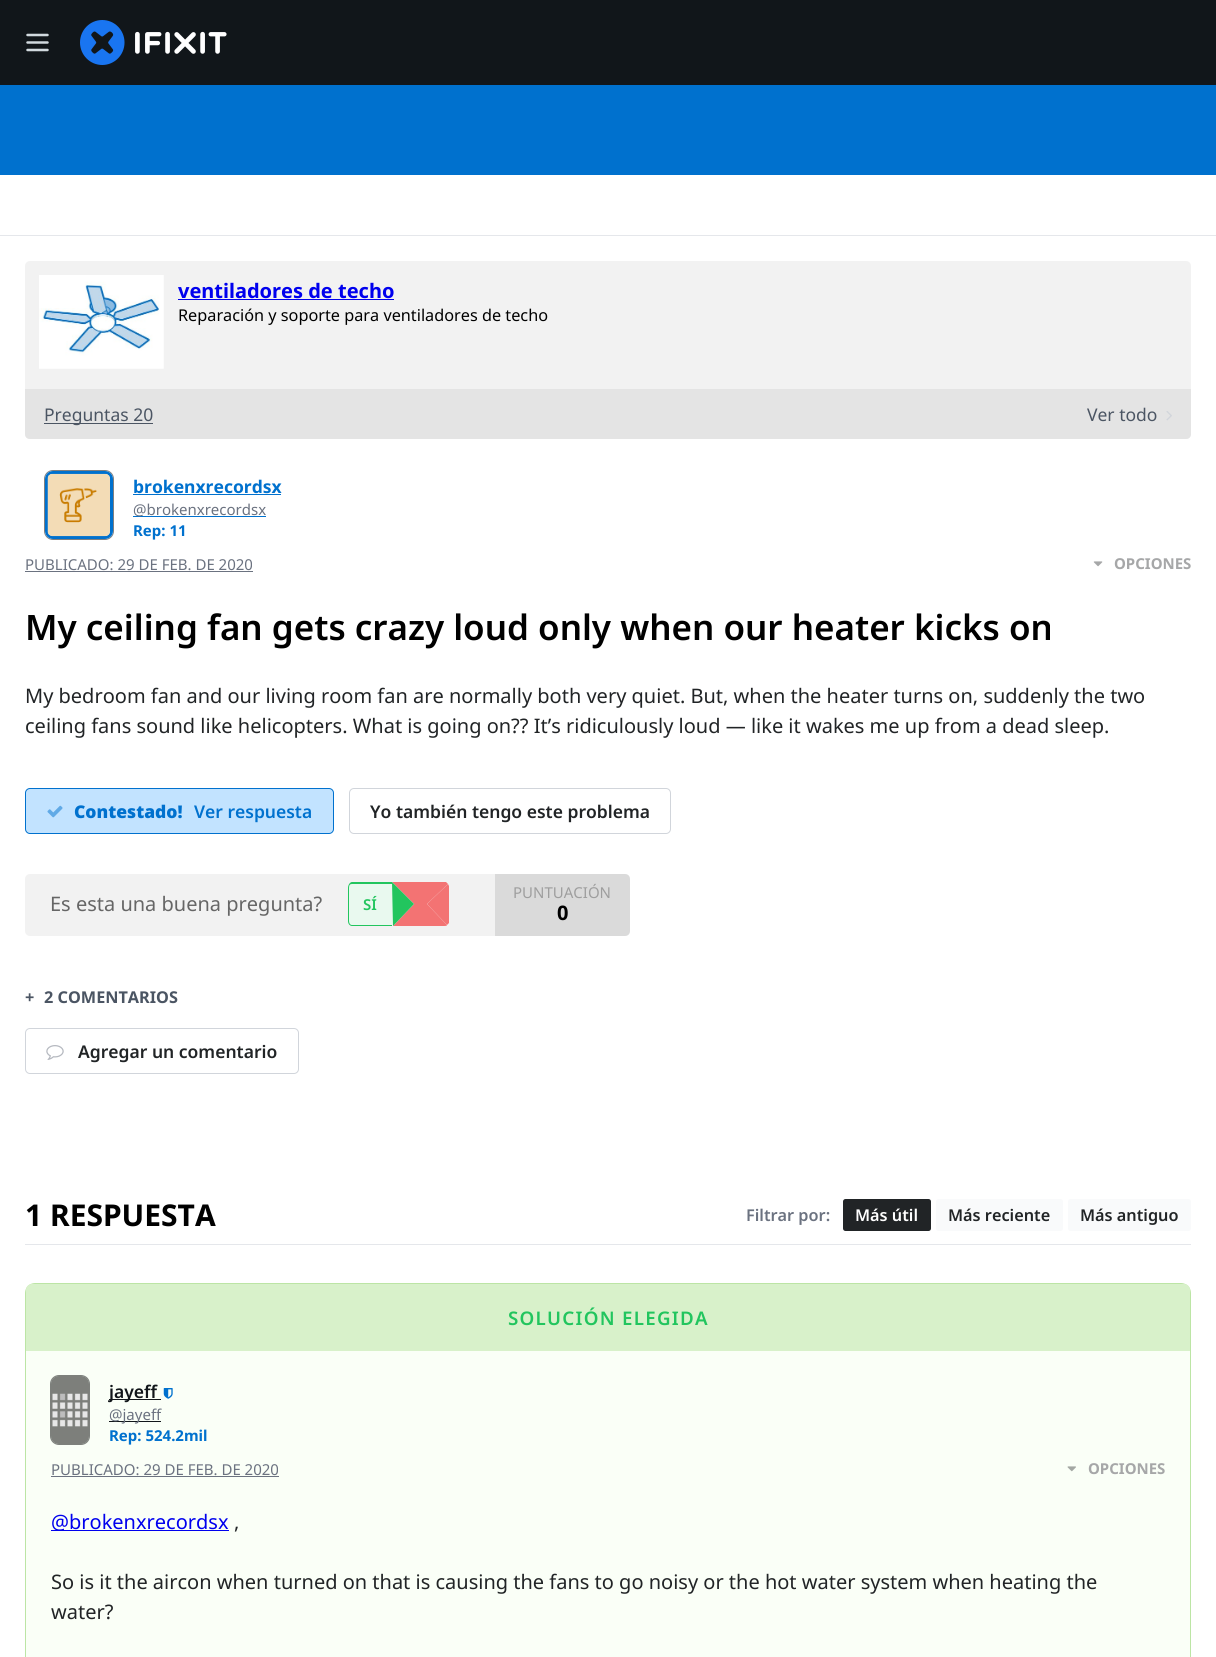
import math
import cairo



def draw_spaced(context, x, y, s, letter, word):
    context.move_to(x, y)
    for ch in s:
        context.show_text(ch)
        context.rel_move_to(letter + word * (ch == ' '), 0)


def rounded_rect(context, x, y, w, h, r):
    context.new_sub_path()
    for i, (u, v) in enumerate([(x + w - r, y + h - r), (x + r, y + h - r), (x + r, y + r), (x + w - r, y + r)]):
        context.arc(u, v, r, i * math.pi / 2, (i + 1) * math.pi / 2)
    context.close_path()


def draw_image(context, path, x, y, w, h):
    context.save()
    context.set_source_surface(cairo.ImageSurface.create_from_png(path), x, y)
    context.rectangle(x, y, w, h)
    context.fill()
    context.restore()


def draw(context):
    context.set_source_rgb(1, 1, 1)
    context.paint()
    context.set_source_rgb(17 / 255, 22 / 255, 26 / 255)
    context.rectangle(0, 0, 1216, 85)
    context.fill()
    context.new_path()
    context.move_to(27.5, 42.5)
    context.line_to(47.5, 42.5)
    context.move_to(27.5, 35)
    context.line_to(47.5, 35)
    context.move_to(27.5, 50)
    context.line_to(47.5, 50)
    context.set_source_rgb(210 / 255, 218 / 255, 223 / 255)
    context.set_line_width(2.5)
    context.set_line_cap(cairo.LineCap.ROUND)
    context.set_line_join(cairo.LineJoin.ROUND)
    context.stroke()
    draw_image(context, "images/1.png", 80, 20, 147, 45)
    context.set_source_rgb(0, 113 / 255, 206 / 255)
    context.rectangle(0, 85, 1216, 90)
    context.fill()
    context.set_source_rgb(229 / 255, 231 / 255, 235 / 255)
    context.rectangle(0, 235, 1216, 1)
    context.fill()
    context.set_source_rgb(242 / 255, 242 / 255, 242 / 255)
    rounded_rect(context, 25, 261, 1166, 178, 5)
    context.fill()
    draw_image(context, "images/2.png", 39, 275, 125, 94)
    context.set_source_rgb(0, 0, 238 / 255)
    context.rectangle(178, 299, 216, 1)
    context.fill()
    context.set_source_rgb(228 / 255, 228 / 255, 228 / 255)
    context.new_path()
    context.move_to(25, 389)
    context.line_to(1191, 389)
    context.line_to(1191, 434)
    context.curve_to(1191, 437, 1189, 439, 1186, 439)
    context.line_to(30, 439)
    context.curve_to(27, 439, 25, 437, 25, 434)
    context.close_path()
    context.fill()
    context.set_source_rgb(75 / 255, 85 / 255, 99 / 255)
    context.rectangle(44, 423, 109, 1)
    context.fill()
    draw_image(context, "images/3.png", 1166, 411, 6, 10)
    rounded_rect(context, 44.5, 470.5, 69, 69, 8.5)
    context.set_source_rgb(128 / 255, 128 / 255, 128 / 255)
    context.set_line_width(1)
    context.set_line_cap(cairo.LineCap.BUTT)
    context.set_line_join(cairo.LineJoin.MITER)
    context.stroke()
    rounded_rect(context, 46.5, 472.5, 65, 65, 6.5)
    context.set_source_rgb(0, 113 / 255, 206 / 255)
    context.set_line_width(3)
    context.stroke()
    draw_image(context, "images/4.png", 47, 473, 63, 64)
    context.rectangle(133, 494, 148, 1)
    context.fill()
    context.rectangle(133, 516, 133, 1)
    context.fill()
    context.set_source_rgb(107 / 255, 114 / 255, 128 / 255)
    context.rectangle(25, 571, 228, 1)
    context.fill()
    draw_image(context, "images/5.png", 1093, 561, 10, 6)
    context.set_source_rgb(194 / 255, 227 / 255, 1)
    rounded_rect(context, 25.5, 788.5, 308, 45, 4.5)
    context.fill_preserve()
    context.set_source_rgb(0, 113 / 255, 206 / 255)
    context.set_line_width(1)
    context.stroke()
    draw_image(context, "images/6.png", 47, 805, 16, 13)
    rounded_rect(context, 349.5, 788.5, 321, 45, 4.5)
    context.set_source_rgb(209 / 255, 213 / 255, 219 / 255)
    context.stroke()
    context.set_source_rgb(242 / 255, 242 / 255, 242 / 255)
    rounded_rect(context, 25, 874, 605, 62, 5)
    context.fill()
    context.set_source_rgb(233 / 255, 249 / 255, 239 / 255)
    context.new_path()
    context.move_to(353, 883)
    context.line_to(393, 883)
    context.line_to(393, 926)
    context.line_to(353, 926)
    context.curve_to(350, 926, 348, 924, 348, 921)
    context.line_to(348, 888)
    context.curve_to(348, 885, 350, 883, 353, 883)
    context.close_path()
    context.fill()
    context.set_source_rgb(34 / 255, 197 / 255, 94 / 255)
    context.set_fill_rule(cairo.FillRule.EVEN_ODD)
    context.new_path()
    context.move_to(352, 882)
    context.line_to(392, 882)
    context.line_to(392, 926)
    context.line_to(352, 926)
    context.curve_to(350, 926, 348, 924, 348, 921)
    context.line_to(348, 888)
    context.curve_to(348, 885, 350, 882, 352, 882)
    context.close_path()
    context.move_to(352, 884)
    context.line_to(392, 884)
    context.line_to(392, 925)
    context.line_to(352, 925)
    context.curve_to(350, 925, 349, 923, 349, 921)
    context.line_to(349, 888)
    context.curve_to(349, 885, 350, 884, 352, 884)
    context.close_path()
    context.fill()
    context.set_source_rgb(243 / 255, 115 / 255, 115 / 255)
    context.set_fill_rule(cairo.FillRule.WINDING)
    context.new_path()
    context.move_to(392, 882)
    context.line_to(414, 904)
    context.line_to(427, 904)
    context.line_to(448, 884)
    context.line_to(446, 882)
    context.close_path()
    context.fill()
    context.new_path()
    context.move_to(448, 884)
    context.line_to(427, 904)
    context.line_to(447, 925)
    context.line_to(449, 923)
    context.line_to(449, 886)
    context.close_path()
    context.fill()
    context.new_path()
    context.move_to(447, 925)
    context.line_to(427, 904)
    context.line_to(414, 904)
    context.line_to(393, 926)
    context.line_to(444, 926)
    context.curve_to(445, 926, 447, 926, 447, 925)
    context.close_path()
    context.fill()
    context.set_source_rgb(34 / 255, 197 / 255, 94 / 255)
    context.new_path()
    context.move_to(393, 926)
    context.line_to(414, 904)
    context.line_to(392, 882)
    context.close_path()
    context.fill()
    context.set_source_rgba(0, 0, 0, 0.1)
    context.new_path()
    context.move_to(495, 874)
    context.line_to(625, 874)
    context.curve_to(628, 874, 630, 876, 630, 879)
    context.line_to(630, 931)
    context.curve_to(630, 934, 628, 936, 625, 936)
    context.line_to(495, 936)
    context.close_path()
    context.fill()
    rounded_rect(context, 25.5, 1028.5, 273, 45, 4.5)
    context.set_source_rgb(209 / 255, 213 / 255, 219 / 255)
    context.stroke()
    draw_image(context, "images/7.png", 46, 1045, 18, 15)
    context.set_source_rgb(229 / 255, 231 / 255, 235 / 255)
    context.rectangle(25, 1244, 1166, 1)
    context.fill()
    context.set_source_rgb(33 / 255, 36 / 255, 38 / 255)
    rounded_rect(context, 843, 1199, 88, 32, 2.5)
    context.fill()
    context.set_source_rgb(249 / 255, 250 / 255, 251 / 255)
    rounded_rect(context, 936, 1199, 127, 32, 2.5)
    context.fill()
    rounded_rect(context, 1068, 1199, 123, 32, 2.5)
    context.fill()
    context.set_source_rgb(250 / 255, 1, 247 / 255)
    rounded_rect(context, 25.5, 1283.5, 1165, 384, 9.5)
    context.fill_preserve()
    context.set_source_rgb(188 / 255, 229 / 255, 165 / 255)
    context.stroke()
    context.set_source_rgb(216 / 255, 241 / 255, 202 / 255)
    context.new_path()
    context.move_to(32, 1284)
    context.line_to(1184, 1284)
    context.curve_to(1187.5, 1284, 1190, 1286.5, 1190, 1290)
    context.line_to(1190, 1351)
    context.line_to(26, 1351)
    context.line_to(26, 1290)
    context.curve_to(26, 1286.5, 28.5, 1284, 32, 1284)
    context.close_path()
    context.fill()
    rounded_rect(context, 50.5, 1375.5, 39, 69, 8.5)
    context.set_source_rgb(125 / 255, 128 / 255, 124 / 255)
    context.stroke()
    context.set_source_rgba(0, 0, 0, 0.5)
    rounded_rect(context, 51, 1376, 38, 68, 8)
    context.fill()
    draw_image(context, "images/8.png", 52, 1393, 36, 34)
    context.set_source_rgb(17 / 255, 22 / 255, 26 / 255)
    context.rectangle(109, 1399, 47, 1)
    context.fill()
    draw_image(context, "images/9.png", 163, 1388, 10, 11)
    context.rectangle(156, 1399, 5, 1)
    context.fill()
    context.rectangle(109, 1421, 52, 1)
    context.fill()
    context.set_source_rgb(107 / 255, 114 / 255, 128 / 255)
    context.rectangle(51, 1476, 228, 1)
    context.fill()
    draw_image(context, "images/10.png", 1067, 1466, 9, 6)
    context.set_source_rgb(0, 0, 238 / 255)
    context.rectangle(51, 1530, 178, 1)
    context.fill()
    context.select_font_face("Noto Sans", cairo.FontSlant.NORMAL, cairo.FontWeight.BOLD)
    context.set_font_size(20)
    context.move_to(178, 298)
    context.show_text("ventiladores de techo")
    context.select_font_face("Noto Sans")
    context.set_font_size(16.25)
    context.set_source_rgb(0, 0, 0)
    context.move_to(178, 321)
    context.show_text("Reparación y soporte para ventiladores de techo")
    context.set_font_size(17.5)
    context.set_source_rgb(75 / 255, 85 / 255, 99 / 255)
    context.move_to(44, 421)
    context.show_text("Preguntas 20")
    context.move_to(1087, 421)
    context.show_text("Ver todo")
    context.select_font_face("Noto Sans", cairo.FontSlant.NORMAL, cairo.FontWeight.BOLD)
    context.set_source_rgb(0, 113 / 255, 206 / 255)
    context.move_to(133, 493)
    context.show_text("brokenxrecordsx")
    context.select_font_face("Noto Sans")
    context.set_font_size(15)
    context.set_source_rgb(107 / 255, 114 / 255, 128 / 255)
    context.move_to(133, 515)
    context.show_text("@brokenxrecordsx")
    context.select_font_face("Noto Sans", cairo.FontSlant.NORMAL, cairo.FontWeight.BOLD)
    context.set_source_rgb(0, 113 / 255, 206 / 255)
    context.move_to(133, 536)
    context.show_text("Rep: 11")
    context.select_font_face("Noto Sans")
    context.set_source_rgb(107 / 255, 114 / 255, 128 / 255)
    context.move_to(25, 570)
    context.show_text("PUBLICADO: 29 DE FEB. DE 2020")
    context.select_font_face("Noto Sans", cairo.FontSlant.NORMAL, cairo.FontWeight.BOLD)
    context.set_source_rgb(166 / 255, 167 / 255, 168 / 255)
    context.move_to(1114, 569)
    context.show_text("OPCIONES")
    context.select_font_face("Noto Sans SemiBold")
    context.set_font_size(35)
    context.set_source_rgb(0, 0, 0)
    context.move_to(25, 640)
    context.show_text("My ceiling fan gets crazy loud only when our heater kicks on")
    context.select_font_face("Noto Sans")
    context.set_font_size(20)
    context.set_source_rgb(33 / 255, 36 / 255, 38 / 255)
    context.move_to(25, 703)
    context.show_text("My bedroom fan and our living room fan are normally both very quiet. But, when the heater turns on, suddenly the two")
    context.move_to(25, 733)
    context.show_text("ceiling fans sound like helicopters. What is going on?? It’s ridiculously loud — like it wakes me up from a dead sleep.")
    context.select_font_face("Noto Sans Black")
    context.set_font_size(17.5)
    context.set_source_rgb(0, 113 / 255, 206 / 255)
    context.move_to(74, 818)
    context.show_text("Contestado!")
    context.select_font_face("Noto Sans SemiBold")
    context.move_to(194, 818)
    context.show_text("Ver respuesta")
    context.set_source_rgb(33 / 255, 36 / 255, 38 / 255)
    context.move_to(370, 818)
    context.show_text("Yo también tengo este problema")
    context.select_font_face("Noto Sans")
    context.set_font_size(20)
    context.set_source_rgb(102 / 255, 102 / 255, 102 / 255)
    context.move_to(50, 911)
    context.show_text("Es esta una buena pregunta?")
    context.select_font_face("Noto Sans SemiBold")
    context.set_font_size(15)
    context.set_source_rgb(34 / 255, 197 / 255, 94 / 255)
    context.move_to(363, 910)
    context.show_text("SÍ")
    context.select_font_face("Noto Sans")
    context.set_source_rgb(158 / 255, 158 / 255, 158 / 255)
    context.move_to(513, 898)
    context.show_text("PUNTUACIÓN")
    context.select_font_face("Noto Sans", cairo.FontSlant.NORMAL, cairo.FontWeight.BOLD)
    context.set_font_size(20)
    context.set_source_rgb(0, 0, 0)
    context.move_to(557, 920)
    context.show_text("0")
    context.set_font_size(16.25)
    context.set_source_rgb(75 / 255, 85 / 255, 99 / 255)
    context.move_to(25, 1003)
    context.show_text("+")
    context.move_to(44, 1003)
    context.show_text("2 COMENTARIOS")
    context.select_font_face("Noto Sans SemiBold")
    context.set_font_size(17.5)
    context.set_source_rgb(33 / 255, 36 / 255, 38 / 255)
    context.move_to(78, 1058)
    context.show_text("Agregar un comentario")
    context.select_font_face("Noto Sans", cairo.FontSlant.NORMAL, cairo.FontWeight.BOLD)
    context.set_font_size(30)
    context.set_source_rgb(0, 0, 0)
    context.move_to(25, 1226)
    context.show_text("1 RESPUESTA")
    context.select_font_face("Noto Sans SemiBold")
    context.set_font_size(16.25)
    context.set_source_rgb(107 / 255, 114 / 255, 128 / 255)
    context.move_to(746, 1221)
    context.show_text("Filtrar por:")
    context.set_source_rgb(1, 1, 1)
    context.move_to(855, 1221)
    context.show_text("Más útil")
    context.set_source_rgb(33 / 255, 36 / 255, 38 / 255)
    context.move_to(948, 1221)
    context.show_text("Más reciente")
    context.move_to(1080, 1221)
    context.show_text("Más antiguo")
    context.set_font_size(18.75)
    context.set_source_rgb(34 / 255, 197 / 255, 94 / 255)
    draw_spaced(context, 508, 1325, "SOLUCIÓN ELEGIDA", 1.25, 0)
    context.set_font_size(17.5)
    context.set_source_rgb(17 / 255, 22 / 255, 26 / 255)
    context.move_to(109, 1398)
    context.show_text("jayeff")
    context.select_font_face("Noto Sans")
    context.set_font_size(15)
    context.set_source_rgb(107 / 255, 114 / 255, 128 / 255)
    context.move_to(109, 1420)
    context.show_text("@jayeff")
    context.select_font_face("Noto Sans", cairo.FontSlant.NORMAL, cairo.FontWeight.BOLD)
    context.set_source_rgb(0, 113 / 255, 206 / 255)
    context.move_to(109, 1441)
    context.show_text("Rep: 524.2mil")
    context.select_font_face("Noto Sans")
    context.set_source_rgb(107 / 255, 114 / 255, 128 / 255)
    context.move_to(51, 1475)
    context.show_text("PUBLICADO: 29 DE FEB. DE 2020")
    context.select_font_face("Noto Sans", cairo.FontSlant.NORMAL, cairo.FontWeight.BOLD)
    context.set_source_rgb(166 / 255, 167 / 255, 168 / 255)
    context.move_to(1088, 1474)
    context.show_text("OPCIONES")
    context.select_font_face("Noto Sans")
    context.set_font_size(20)
    context.set_source_rgb(0, 0, 238 / 255)
    context.move_to(51, 1529)
    context.show_text("@brokenxrecordsx")
    context.set_source_rgb(33 / 255, 36 / 255, 38 / 255)
    context.move_to(234, 1529)
    context.show_text(",")
    context.move_to(51, 1589)
    context.show_text("So is it the aircon when turned on that is causing the fans to go noisy or the hot water system when heating the")
    context.move_to(51, 1619)
    context.show_text("water?")


surface = cairo.ImageSurface(cairo.Format.RGB24, 1216, 1657)
context = cairo.Context(surface)
options = cairo.FontOptions()
options.set_hint_metrics(cairo.HintMetrics.OFF)
options.set_hint_style(cairo.HintStyle.NONE)
context.set_font_options(options)
context.set_miter_limit(4)
draw(context)
surface.write_to_png("out.png")
